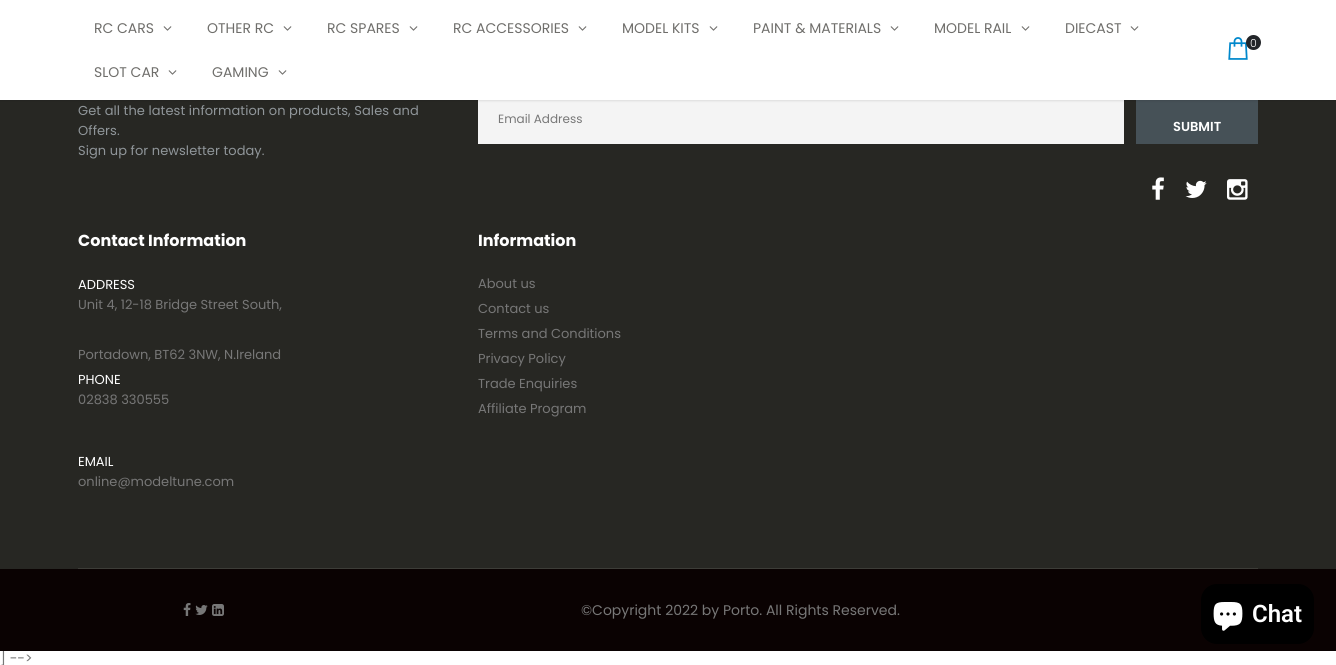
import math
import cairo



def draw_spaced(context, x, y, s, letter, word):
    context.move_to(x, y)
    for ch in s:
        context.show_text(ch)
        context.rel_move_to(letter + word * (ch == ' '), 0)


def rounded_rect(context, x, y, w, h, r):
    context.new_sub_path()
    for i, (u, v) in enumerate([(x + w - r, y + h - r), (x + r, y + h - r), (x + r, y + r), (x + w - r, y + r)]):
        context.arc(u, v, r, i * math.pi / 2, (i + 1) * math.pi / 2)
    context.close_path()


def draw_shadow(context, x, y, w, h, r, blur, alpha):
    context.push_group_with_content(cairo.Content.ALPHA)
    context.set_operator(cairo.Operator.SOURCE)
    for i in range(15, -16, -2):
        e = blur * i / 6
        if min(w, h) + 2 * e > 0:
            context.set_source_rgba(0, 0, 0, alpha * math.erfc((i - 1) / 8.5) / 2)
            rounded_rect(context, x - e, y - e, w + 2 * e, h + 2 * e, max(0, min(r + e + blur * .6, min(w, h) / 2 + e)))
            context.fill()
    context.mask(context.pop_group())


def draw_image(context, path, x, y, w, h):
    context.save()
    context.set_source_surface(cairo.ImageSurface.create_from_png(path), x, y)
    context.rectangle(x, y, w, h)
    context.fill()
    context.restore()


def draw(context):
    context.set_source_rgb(1, 1, 1)
    context.paint()
    context.set_source_rgb(39 / 255, 39 / 255, 35 / 255)
    context.rectangle(0, 100, 1336, 469)
    context.fill()
    context.set_source_rgb(244 / 255, 244 / 255, 244 / 255)
    context.rectangle(478, 100, 646, 44)
    context.fill()
    context.set_source_rgb(70 / 255, 81 / 255, 87 / 255)
    context.rectangle(1136, 100, 122, 44)
    context.fill()
    context.set_source_rgb(0, 0, 0)
    draw_shadow(context, 0, 1, 1336, 100, 0, 1, 0.1)
    context.set_source_rgb(1, 1, 1)
    context.rectangle(0, 0, 1336, 100)
    context.fill()
    draw_image(context, "images/1.png", 163, 26, 9, 5)
    draw_image(context, "images/1.png", 283, 26, 9, 5)
    draw_image(context, "images/1.png", 409, 26, 9, 5)
    draw_image(context, "images/1.png", 578, 26, 9, 5)
    draw_image(context, "images/1.png", 709, 26, 9, 5)
    draw_image(context, "images/1.png", 890, 26, 9, 5)
    draw_image(context, "images/1.png", 1021, 26, 9, 5)
    draw_image(context, "images/1.png", 1130, 26, 9, 5)
    draw_image(context, "images/1.png", 168, 70, 9, 5)
    draw_image(context, "images/1.png", 278, 70, 9, 5)
    draw_image(context, "images/2.png", 1228, 37, 20, 23)
    context.set_source_rgb(34 / 255, 37 / 255, 41 / 255)
    context.arc(1253.5, 42.5, 7.5, 0, 2 * math.pi)
    context.fill()
    draw_image(context, "images/3.png", 1152, 177, 12, 23)
    draw_image(context, "images/4.png", 1185, 180, 22, 18)
    draw_image(context, "images/5.png", 1227, 179, 21, 21)
    context.set_source_rgb(61 / 255, 61 / 255, 56 / 255)
    context.rectangle(78, 568, 1180, 1)
    context.fill()
    context.select_font_face("Poppins")
    context.set_font_size(14)
    context.set_source_rgb(111 / 255, 110 / 255, 107 / 255)
    context.move_to(94, 33)
    context.show_text("RC CARS")
    context.move_to(207, 33)
    context.show_text("OTHER RC")
    context.move_to(327, 33)
    context.show_text("RC SPARES")
    context.move_to(453, 33)
    context.show_text("RC ACCESSORIES")
    context.move_to(622, 33)
    context.show_text("MODEL KITS")
    context.move_to(753, 33)
    context.show_text("PAINT & MATERIALS")
    context.move_to(934, 33)
    context.show_text("MODEL RAIL")
    context.move_to(1065, 33)
    context.show_text("DIECAST")
    context.move_to(94, 77)
    context.show_text("SLOT CAR")
    context.move_to(212, 77)
    context.show_text("GAMING")
    context.select_font_face("Poppins Light")
    context.set_font_size(11)
    context.set_source_rgb(1, 1, 1)
    context.move_to(1250, 47)
    context.show_text("0")
    context.select_font_face("Poppins")
    context.set_font_size(13)
    context.set_source_rgb(144 / 255, 150 / 255, 154 / 255)
    draw_spaced(context, 78, 115, "Get all the latest information on products, Sales and", 0.07, 0)
    draw_spaced(context, 78, 135, "Offers.", 0.07, 0)
    draw_spaced(context, 78, 155, "Sign up for newsletter today.", 0.07, 0)
    context.set_font_size(12)
    context.set_source_rgb(119 / 255, 119 / 255, 119 / 255)
    context.move_to(498, 123)
    context.show_text("Email Address")
    context.select_font_face("Poppins SemiBold")
    context.set_font_size(13)
    context.set_source_rgb(1, 1, 1)
    context.move_to(1173, 131)
    context.show_text("SUBMIT")
    context.select_font_face("Poppins", cairo.FontSlant.NORMAL, cairo.FontWeight.BOLD)
    context.set_font_size(16)
    context.move_to(78, 246)
    context.show_text("Contact Information")
    context.select_font_face("Poppins")
    context.set_font_size(13)
    context.move_to(78, 289)
    context.show_text("ADDRESS")
    context.set_source_rgb(119 / 255, 119 / 255, 119 / 255)
    context.move_to(78, 309)
    context.show_text("Unit 4, 12-18 Bridge Street South,")
    context.move_to(78, 359)
    context.show_text("Portadown, BT62 3NW, N.Ireland")
    context.set_source_rgb(1, 1, 1)
    context.move_to(78, 384)
    context.show_text("PHONE")
    context.set_source_rgb(119 / 255, 119 / 255, 119 / 255)
    context.move_to(78, 404)
    context.show_text("02838 330555")
    context.set_source_rgb(1, 1, 1)
    context.move_to(78, 466)
    context.show_text("EMAIL")
    context.set_source_rgb(119 / 255, 119 / 255, 119 / 255)
    context.move_to(78, 486)
    context.show_text("online@modeltune.com")
    context.select_font_face("Poppins", cairo.FontSlant.NORMAL, cairo.FontWeight.BOLD)
    context.set_font_size(16)
    context.set_source_rgb(1, 1, 1)
    context.move_to(478, 246)
    context.show_text("Information")
    context.select_font_face("Poppins")
    context.set_font_size(13)
    context.set_source_rgb(119 / 255, 119 / 255, 119 / 255)
    context.move_to(478, 288)
    context.show_text("About us")
    context.move_to(478, 313)
    context.show_text("Contact us")
    context.move_to(478, 338)
    context.show_text("Terms and Conditions")
    context.move_to(478, 363)
    context.show_text("Privacy Policy")
    context.move_to(478, 388)
    context.show_text("Trade Enquiries")
    context.move_to(478, 413)
    context.show_text("Affiliate Program")
    context.set_font_size(14)
    context.move_to(0, 663)
    context.show_text("] -->")
    context.set_source_rgb(10 / 255, 2 / 255, 2 / 255)
    context.rectangle(0, 569, 1336, 82)
    context.fill()
    context.set_source_rgb(0, 0, 0)
    rounded_rect(context, 1201, 584, 113, 60, 16)
    context.fill()
    context.select_font_face("Roboto SemiBold")
    context.set_font_size(24)
    context.set_source_rgb(1, 1, 1)
    context.move_to(1252, 622)
    context.show_text("Chat")
    draw_image(context, "images/9.png", 1213, 602, 30, 29)
    context.select_font_face("Poppins")
    context.set_font_size(14)
    context.set_source_rgb(119 / 255, 119 / 255, 119 / 255)
    context.move_to(581, 615)
    context.show_text("©Copyright 2022 by Porto. All Rights Reserved.")
    draw_image(context, "images/8.png", 212, 604, 12, 12)
    draw_image(context, "images/7.png", 195, 605, 13, 10)
    draw_image(context, "images/6.png", 183, 603, 8, 13)


surface = cairo.ImageSurface(cairo.Format.RGB24, 1336, 665)
context = cairo.Context(surface)
options = cairo.FontOptions()
options.set_hint_metrics(cairo.HintMetrics.OFF)
options.set_hint_style(cairo.HintStyle.NONE)
context.set_font_options(options)
context.set_miter_limit(4)
draw(context)
surface.write_to_png("out.png")
